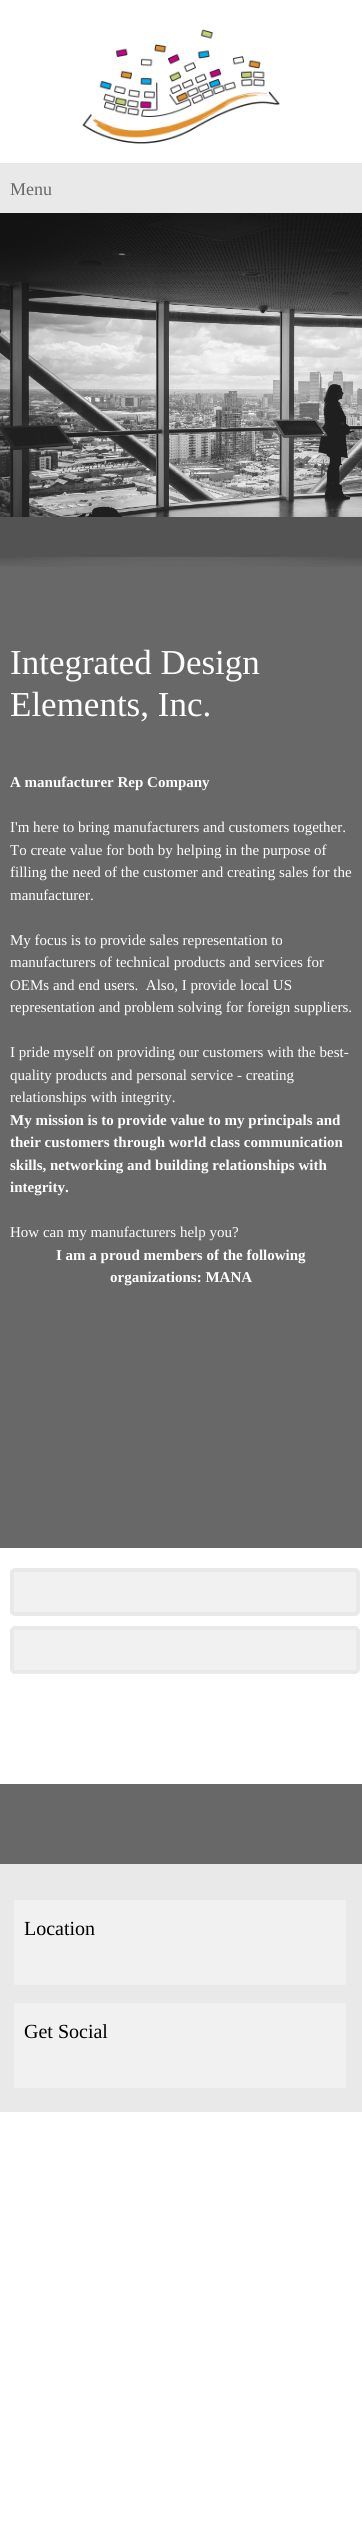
import math
import cairo



def rounded_rect(context, x, y, w, h, r):
    context.new_sub_path()
    for i, (u, v) in enumerate([(x + w - r, y + h - r), (x + r, y + h - r), (x + r, y + r), (x + w - r, y + r)]):
        context.arc(u, v, r, i * math.pi / 2, (i + 1) * math.pi / 2)
    context.close_path()


def draw_image(context, path, x, y, w, h):
    context.save()
    context.set_source_surface(cairo.ImageSurface.create_from_png(path), x, y)
    context.rectangle(x, y, w, h)
    context.fill()
    context.restore()


def draw(context):
    context.set_source_rgb(1, 1, 1)
    context.paint()
    draw_image(context, "images/1.png", 82, 29, 198, 115)
    context.set_source_rgb(233 / 255, 233 / 255, 233 / 255)
    context.rectangle(0, 163, 362, 50)
    context.fill()
    draw_image(context, "images/2.png", 0, 213, 362, 304)
    context.set_source_rgba(0, 0, 0, 0.18)
    context.rectangle(347, 213, 15, 1)
    context.fill()
    context.set_source_rgb(83 / 255, 83 / 255, 83 / 255)
    context.rectangle(0, 517, 362, 40)
    context.fill()
    context.set_source_rgb(104 / 255, 104 / 255, 104 / 255)
    context.rectangle(0, 557, 362, 991)
    context.fill()
    draw_image(context, "images/3.png", 0, 557, 362, 10)
    context.set_source_rgb(241 / 255, 241 / 255, 241 / 255)
    rounded_rect(context, 12, 1570, 346, 44, 3)
    context.fill_preserve()
    context.set_source_rgb(233 / 255, 233 / 255, 233 / 255)
    context.set_line_width(4)
    context.stroke()
    context.set_source_rgb(241 / 255, 241 / 255, 241 / 255)
    rounded_rect(context, 12, 1628, 346, 44, 3)
    context.fill_preserve()
    context.set_source_rgb(233 / 255, 233 / 255, 233 / 255)
    context.stroke()
    context.set_source_rgb(104 / 255, 104 / 255, 104 / 255)
    context.rectangle(0, 1784, 362, 80)
    context.fill()
    context.set_source_rgb(233 / 255, 233 / 255, 233 / 255)
    context.rectangle(0, 1864, 362, 248)
    context.fill()
    context.set_source_rgb(241 / 255, 241 / 255, 241 / 255)
    rounded_rect(context, 12, 1898, 336, 89, 3)
    context.fill_preserve()
    context.set_source_rgb(233 / 255, 233 / 255, 233 / 255)
    context.stroke()
    context.set_source_rgb(241 / 255, 241 / 255, 241 / 255)
    rounded_rect(context, 12, 2001, 336, 89, 3)
    context.fill_preserve()
    context.set_source_rgb(233 / 255, 233 / 255, 233 / 255)
    context.stroke()
    context.select_font_face("Liberation Serif")
    context.set_font_size(18)
    context.set_source_rgb(104 / 255, 104 / 255, 104 / 255)
    context.move_to(10, 195)
    context.show_text("Menu")
    context.set_font_size(35)
    context.set_source_rgb(1, 1, 1)
    context.move_to(10, 674)
    context.show_text("Integrated Design")
    context.move_to(10, 716)
    context.show_text("Elements, Inc.")
    context.select_font_face("Liberation Serif", cairo.FontSlant.NORMAL, cairo.FontWeight.BOLD)
    context.set_font_size(15)
    context.move_to(10, 787)
    context.show_text("A manufacturer Rep Company")
    context.select_font_face("Liberation Serif")
    context.move_to(10, 832)
    context.show_text("I'm here to bring manufacturers and customers together.")
    context.move_to(10, 855)
    context.show_text("To create value for both by helping in the purpose of")
    context.move_to(10, 877)
    context.show_text("filling the need of the customer and creating sales for the")
    context.move_to(10, 900)
    context.show_text("manufacturer.")
    context.move_to(10, 945)
    context.show_text("My focus is to provide sales representation to")
    context.move_to(10, 967)
    context.show_text("manufacturers of technical products and services for")
    context.move_to(10, 990)
    context.show_text("OEMs and end users.  Also, I provide local US")
    context.move_to(10, 1012)
    context.show_text("representation and problem solving for foreign suppliers.")
    context.move_to(10, 1057)
    context.show_text("I pride myself on providing our customers with the best-")
    context.move_to(10, 1080)
    context.show_text("quality products and personal service - creating")
    context.move_to(10, 1102)
    context.show_text("relationships with integrity.")
    context.select_font_face("Liberation Serif", cairo.FontSlant.NORMAL, cairo.FontWeight.BOLD)
    context.move_to(10, 1125)
    context.show_text("My mission is to provide value to my principals and")
    context.move_to(10, 1147)
    context.show_text("their customers through world class communication")
    context.move_to(10, 1170)
    context.show_text("skills, networking and building relationships with")
    context.move_to(10, 1192)
    context.show_text("integrity.")
    context.select_font_face("Liberation Serif")
    context.move_to(10, 1237)
    context.show_text("How can my manufacturers help you?")
    context.select_font_face("Liberation Serif", cairo.FontSlant.NORMAL, cairo.FontWeight.BOLD)
    context.move_to(56, 1260)
    context.show_text("I am a proud members of the following")
    context.move_to(110, 1282)
    context.show_text("organizations: MANA")
    context.select_font_face("Liberation Serif")
    context.set_font_size(20)
    context.set_source_rgb(0, 0, 0)
    context.move_to(24, 1935)
    context.show_text("Location")
    context.move_to(24, 2038)
    context.show_text("Get Social")


surface = cairo.ImageSurface(cairo.Format.RGB24, 362, 2535)
context = cairo.Context(surface)
options = cairo.FontOptions()
options.set_hint_metrics(cairo.HintMetrics.OFF)
options.set_hint_style(cairo.HintStyle.NONE)
context.set_font_options(options)
context.set_miter_limit(4)
draw(context)
surface.write_to_png("out.png")
